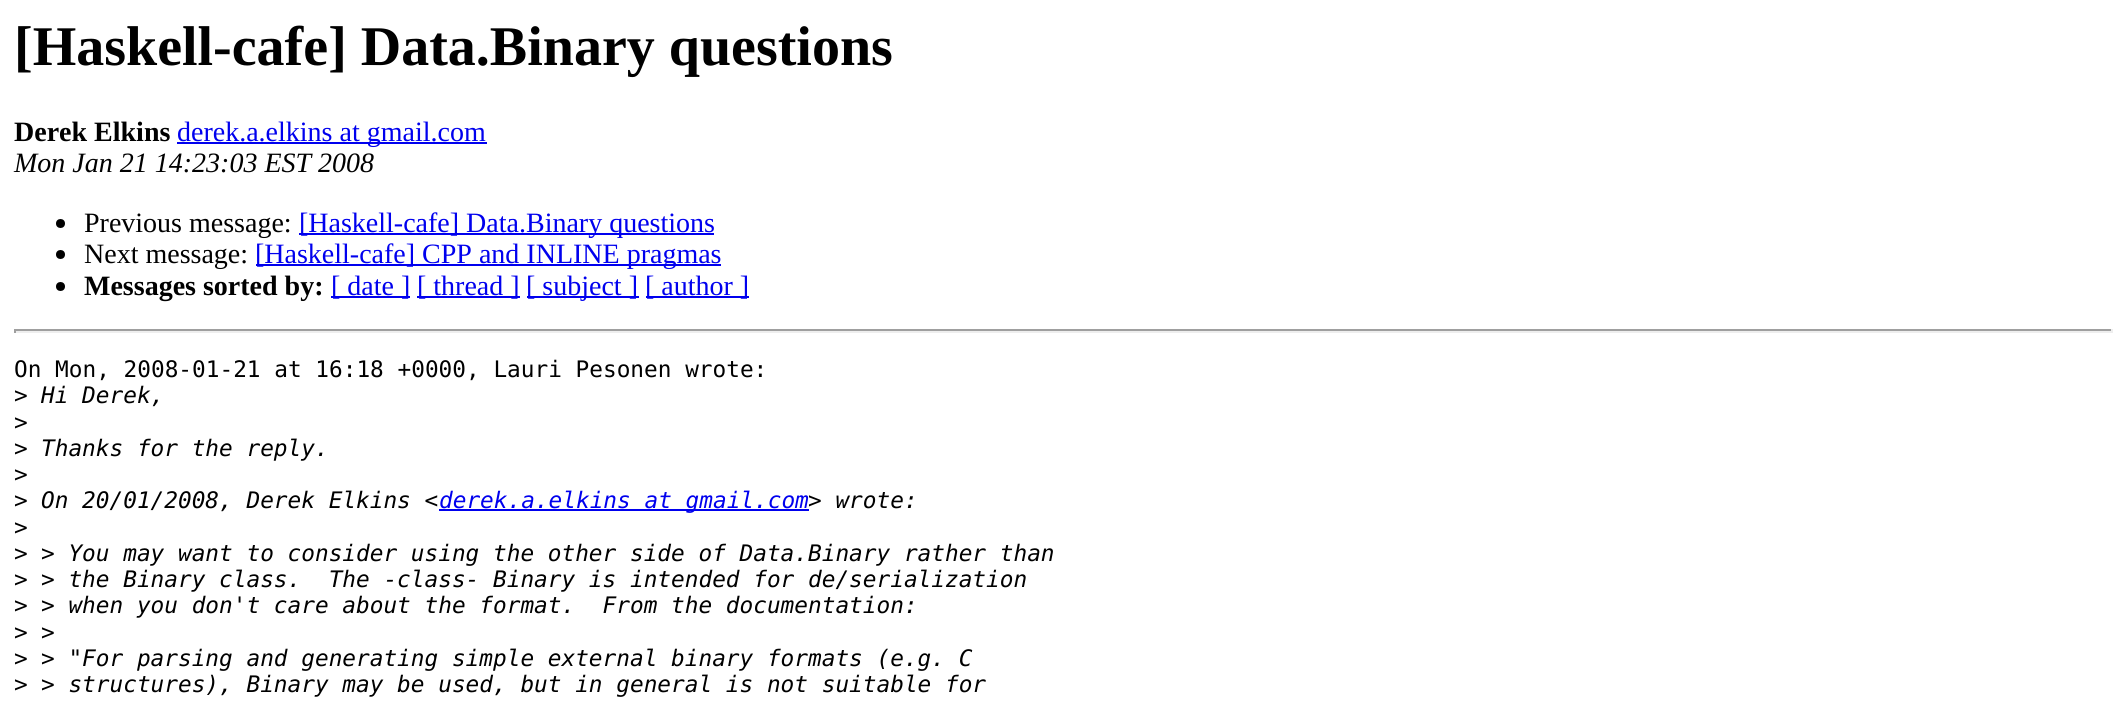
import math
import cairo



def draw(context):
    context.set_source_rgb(1, 1, 1)
    context.paint()
    context.set_source_rgb(0, 0, 238 / 255)
    context.rectangle(177, 142, 310, 2)
    context.fill()
    context.set_source_rgb(0, 0, 0)
    context.arc(60.5, 223.5, 4.5, 0, 2 * math.pi)
    context.fill()
    context.set_source_rgb(0, 0, 238 / 255)
    context.rectangle(299, 233, 415, 2)
    context.fill()
    context.set_source_rgb(0, 0, 0)
    context.arc(60.5, 254.5, 4.5, 0, 2 * math.pi)
    context.fill()
    context.set_source_rgb(0, 0, 238 / 255)
    context.rectangle(256, 264, 465, 2)
    context.fill()
    context.set_source_rgb(0, 0, 0)
    context.arc(60.5, 286.5, 4.5, 0, 2 * math.pi)
    context.fill()
    context.set_source_rgb(0, 0, 238 / 255)
    context.rectangle(331, 296, 79, 2)
    context.fill()
    context.rectangle(417, 296, 103, 2)
    context.fill()
    context.rectangle(527, 296, 112, 2)
    context.fill()
    context.rectangle(646, 296, 103, 2)
    context.fill()
    context.set_source_rgb(159 / 255, 159 / 255, 159 / 255)
    context.rectangle(14, 329, 2098, 2)
    context.fill()
    context.set_source_rgb(238 / 255, 238 / 255, 238 / 255)
    context.rectangle(2111, 329, 2, 4)
    context.fill()
    context.rectangle(14, 331, 2098, 2)
    context.fill()
    context.set_source_rgb(159 / 255, 159 / 255, 159 / 255)
    context.rectangle(14, 329, 2, 4)
    context.fill()
    context.set_source_rgb(0, 0, 238 / 255)
    context.rectangle(439, 509, 370, 2)
    context.fill()
    context.select_font_face("Liberation Serif", cairo.FontSlant.NORMAL, cairo.FontWeight.BOLD)
    context.set_font_size(56)
    context.set_source_rgb(0, 0, 0)
    context.move_to(14, 65)
    context.show_text("[Haskell-cafe] Data.Binary questions")
    context.set_font_size(28)
    context.move_to(14, 141)
    context.show_text("Derek Elkins")
    context.select_font_face("Liberation Serif")
    context.set_source_rgb(0, 0, 238 / 255)
    context.move_to(177, 141)
    context.show_text("derek.a.elkins at gmail.com")
    context.select_font_face("Liberation Serif", cairo.FontSlant.ITALIC)
    context.set_source_rgb(0, 0, 0)
    context.move_to(14, 172)
    context.show_text("Mon Jan 21 14:23:03 EST 2008")
    context.select_font_face("Liberation Serif")
    context.move_to(84, 232)
    context.show_text("Previous message:")
    context.set_source_rgb(0, 0, 238 / 255)
    context.move_to(299, 232)
    context.show_text("[Haskell-cafe] Data.Binary questions")
    context.set_source_rgb(0, 0, 0)
    context.move_to(84, 263)
    context.show_text("Next message:")
    context.set_source_rgb(0, 0, 238 / 255)
    context.move_to(255, 263)
    context.show_text("[Haskell-cafe] CPP and INLINE pragmas")
    context.select_font_face("Liberation Serif", cairo.FontSlant.NORMAL, cairo.FontWeight.BOLD)
    context.set_source_rgb(0, 0, 0)
    context.move_to(84, 295)
    context.show_text("Messages sorted by:")
    context.select_font_face("Liberation Serif")
    context.set_source_rgb(0, 0, 238 / 255)
    context.move_to(331, 295)
    context.show_text("[ date ]")
    context.move_to(417, 295)
    context.show_text("[ thread ]")
    context.move_to(526, 295)
    context.show_text("[ subject ]")
    context.move_to(645, 295)
    context.show_text("[ author ]")
    context.select_font_face("DejaVu Sans Mono")
    context.set_font_size(22.75)
    context.set_source_rgb(0, 0, 0)
    context.move_to(14, 377)
    context.show_text("On Mon, 2008-01-21 at 16:18 +0000, Lauri Pesonen wrote:")
    context.move_to(14, 403)
    context.show_text(">")
    context.select_font_face("DejaVu Sans Mono", cairo.FontSlant.ITALIC)
    context.move_to(41, 403)
    context.show_text("Hi Derek,")
    context.select_font_face("DejaVu Sans Mono")
    context.move_to(14, 430)
    context.show_text(">")
    context.move_to(14, 456)
    context.show_text(">")
    context.select_font_face("DejaVu Sans Mono", cairo.FontSlant.ITALIC)
    context.move_to(41, 456)
    context.show_text("Thanks for the reply.")
    context.select_font_face("DejaVu Sans Mono")
    context.move_to(14, 482)
    context.show_text(">")
    context.move_to(14, 508)
    context.show_text(">")
    context.select_font_face("DejaVu Sans Mono", cairo.FontSlant.ITALIC)
    context.move_to(41, 508)
    context.show_text("On 20/01/2008, Derek Elkins <")
    context.set_source_rgb(0, 0, 238 / 255)
    context.move_to(439, 508)
    context.show_text("derek.a.elkins at gmail.com")
    context.set_source_rgb(0, 0, 0)
    context.move_to(808, 508)
    context.show_text("> wrote:")
    context.select_font_face("DejaVu Sans Mono")
    context.move_to(14, 535)
    context.show_text(">")
    context.move_to(14, 561)
    context.show_text(">")
    context.select_font_face("DejaVu Sans Mono", cairo.FontSlant.ITALIC)
    context.move_to(41, 561)
    context.show_text("> You may want to consider using the other side of Data.Binary rather than")
    context.select_font_face("DejaVu Sans Mono")
    context.move_to(14, 587)
    context.show_text(">")
    context.select_font_face("DejaVu Sans Mono", cairo.FontSlant.ITALIC)
    context.move_to(41, 587)
    context.show_text("> the Binary class.  The -class- Binary is intended for de/serialization")
    context.select_font_face("DejaVu Sans Mono")
    context.move_to(14, 613)
    context.show_text(">")
    context.select_font_face("DejaVu Sans Mono", cairo.FontSlant.ITALIC)
    context.move_to(41, 613)
    context.show_text("> when you don't care about the format.  From the documentation:")
    context.select_font_face("DejaVu Sans Mono")
    context.move_to(14, 640)
    context.show_text(">")
    context.select_font_face("DejaVu Sans Mono", cairo.FontSlant.ITALIC)
    context.move_to(41, 640)
    context.show_text(">")
    context.select_font_face("DejaVu Sans Mono")
    context.move_to(14, 666)
    context.show_text(">")
    context.select_font_face("DejaVu Sans Mono", cairo.FontSlant.ITALIC)
    context.move_to(41, 666)
    context.show_text("> \"For parsing and generating simple external binary formats (e.g. C")
    context.select_font_face("DejaVu Sans Mono")
    context.move_to(14, 692)
    context.show_text(">")
    context.select_font_face("DejaVu Sans Mono", cairo.FontSlant.ITALIC)
    context.move_to(41, 692)
    context.show_text("> structures), Binary may be used, but in general is not suitable for")


surface = cairo.ImageSurface(cairo.Format.RGB24, 2125, 705)
context = cairo.Context(surface)
options = cairo.FontOptions()
options.set_hint_metrics(cairo.HintMetrics.OFF)
options.set_hint_style(cairo.HintStyle.NONE)
context.set_font_options(options)
context.set_miter_limit(4)
draw(context)
surface.write_to_png("out.png")
